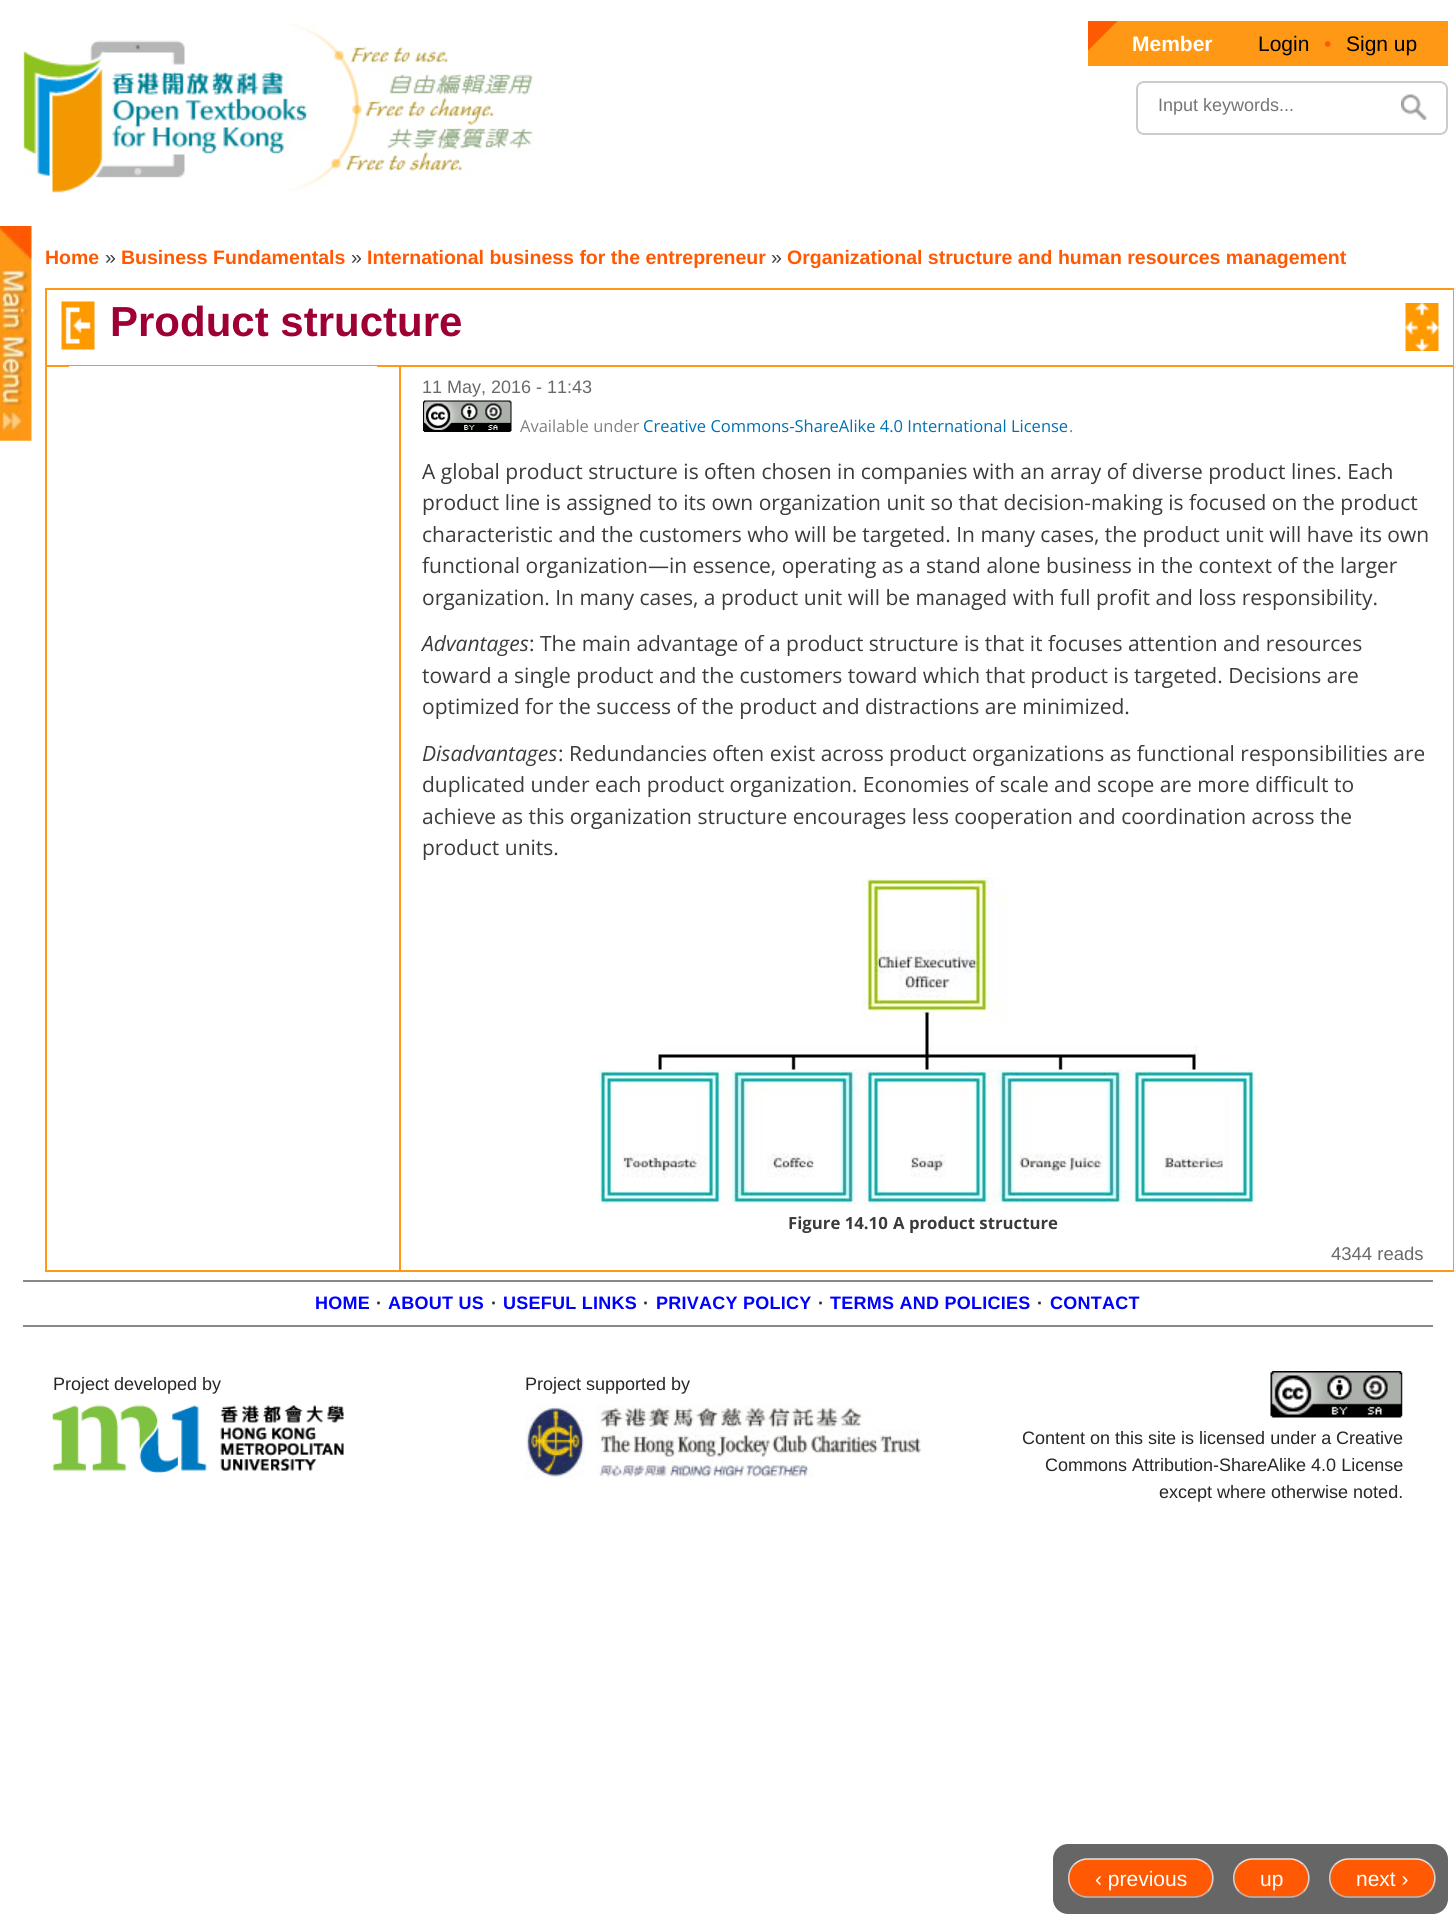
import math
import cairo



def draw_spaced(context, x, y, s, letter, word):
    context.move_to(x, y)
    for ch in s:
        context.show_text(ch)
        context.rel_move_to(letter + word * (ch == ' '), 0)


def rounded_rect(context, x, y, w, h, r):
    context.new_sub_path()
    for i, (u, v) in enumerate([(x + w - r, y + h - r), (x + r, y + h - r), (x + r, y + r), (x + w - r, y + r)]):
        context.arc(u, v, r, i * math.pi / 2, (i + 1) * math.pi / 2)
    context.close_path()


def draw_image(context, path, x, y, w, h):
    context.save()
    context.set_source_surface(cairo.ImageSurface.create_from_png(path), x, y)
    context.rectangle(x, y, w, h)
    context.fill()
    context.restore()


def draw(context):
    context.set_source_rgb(1, 1, 1)
    context.paint()
    draw_image(context, "images/1.png", 23, 24, 510, 169)
    context.set_source_rgb(1, 152 / 255, 21 / 255)
    context.rectangle(1088, 21, 360, 45)
    context.fill()
    context.save()
    context.rectangle(1088, 21, 360, 45)
    context.clip()
    context.set_source_rgb(254 / 255, 90 / 255, 1 / 255)
    context.new_path()
    context.move_to(1087.5, 21)
    context.line_to(1117.5, 21)
    context.line_to(1087.5, 51)
    context.close_path()
    context.fill()
    context.restore()
    rounded_rect(context, 1137, 82, 310, 52, 7)
    context.set_source_rgb(204 / 255, 204 / 255, 204 / 255)
    context.stroke()
    draw_image(context, "images/2.png", 1401, 94, 26, 26)
    context.rectangle(46, 289, 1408, 982)
    context.set_source_rgb(1, 152 / 255, 21 / 255)
    context.stroke()
    draw_image(context, "images/3.png", 0, 226, 32, 215)
    context.rectangle(47, 365, 1407, 2)
    context.fill()
    context.set_source_rgb(1, 1, 1)
    context.rectangle(69, 366, 308, 1)
    context.fill()
    draw_image(context, "images/4.png", 61, 301, 34, 49)
    draw_image(context, "images/5.png", 1405, 303, 34, 48)
    context.set_source_rgb(1, 152 / 255, 21 / 255)
    context.rectangle(399, 366, 2, 905)
    context.fill()
    draw_image(context, "images/6.png", 423, 400, 89, 32)
    draw_image(context, "images/7.png", 598, 877, 658, 328)
    context.set_source_rgb(102 / 255, 102 / 255, 102 / 255)
    rounded_rect(context, 1053, 1844, 395, 70, 15)
    context.fill()
    context.set_source_rgb(1, 89 / 255, 3 / 255)
    rounded_rect(context, 1068, 1859, 146, 39, 19.5)
    context.fill()
    context.new_path()
    context.move_to(1074, 1864.5)
    context.curve_to(1078, 1861, 1082.5, 1859, 1087.5, 1859)
    context.line_to(1194, 1859)
    context.curve_to(1199, 1859, 1203.5, 1861, 1207.5, 1864.5)
    context.set_source_rgb(228 / 255, 228 / 255, 228 / 255)
    context.set_line_width(1.5)
    context.stroke()
    context.new_path()
    context.move_to(1207.5, 1864.5)
    context.curve_to(1214.5, 1872, 1214.5, 1884, 1207.5, 1891.5)
    context.set_source_rgb(210 / 255, 210 / 255, 210 / 255)
    context.stroke()
    context.new_path()
    context.move_to(1207.5, 1891.5)
    context.curve_to(1203.5, 1895, 1199, 1897, 1194, 1897)
    context.line_to(1087.5, 1897)
    context.curve_to(1082.5, 1897, 1078, 1895, 1074, 1891.5)
    context.set_source_rgb(180 / 255, 180 / 255, 180 / 255)
    context.stroke()
    context.new_path()
    context.move_to(1074, 1891.5)
    context.curve_to(1067, 1884, 1067, 1872, 1074, 1864.5)
    context.set_source_rgb(210 / 255, 210 / 255, 210 / 255)
    context.stroke()
    context.set_source_rgb(1, 89 / 255, 3 / 255)
    rounded_rect(context, 1233, 1859, 77, 39, 19.5)
    context.fill()
    context.new_path()
    context.move_to(1239, 1864.5)
    context.curve_to(1243, 1861, 1247.5, 1859, 1252.5, 1859)
    context.line_to(1290, 1859)
    context.curve_to(1295, 1859, 1299.5, 1861, 1303.5, 1864.5)
    context.set_source_rgb(228 / 255, 228 / 255, 228 / 255)
    context.stroke()
    context.new_path()
    context.move_to(1303.5, 1864.5)
    context.curve_to(1310.5, 1872, 1310.5, 1884, 1303.5, 1891.5)
    context.set_source_rgb(210 / 255, 210 / 255, 210 / 255)
    context.stroke()
    context.new_path()
    context.move_to(1303.5, 1891.5)
    context.curve_to(1299.5, 1895, 1295, 1897, 1290, 1897)
    context.line_to(1252.5, 1897)
    context.curve_to(1247.5, 1897, 1243, 1895, 1239, 1891.5)
    context.set_source_rgb(180 / 255, 180 / 255, 180 / 255)
    context.stroke()
    context.new_path()
    context.move_to(1239, 1891.5)
    context.curve_to(1232, 1884, 1232, 1872, 1239, 1864.5)
    context.set_source_rgb(210 / 255, 210 / 255, 210 / 255)
    context.stroke()
    context.set_source_rgb(1, 89 / 255, 3 / 255)
    rounded_rect(context, 1329, 1859, 107, 39, 19.5)
    context.fill()
    context.new_path()
    context.move_to(1335, 1864.5)
    context.curve_to(1339, 1861, 1343.5, 1859, 1348.5, 1859)
    context.line_to(1416, 1859)
    context.curve_to(1421, 1859, 1425.5, 1861, 1429.5, 1864.5)
    context.set_source_rgb(228 / 255, 228 / 255, 228 / 255)
    context.stroke()
    context.new_path()
    context.move_to(1429.5, 1864.5)
    context.curve_to(1436.5, 1872, 1436.5, 1884, 1429.5, 1891.5)
    context.set_source_rgb(210 / 255, 210 / 255, 210 / 255)
    context.stroke()
    context.new_path()
    context.move_to(1429.5, 1891.5)
    context.curve_to(1425.5, 1895, 1421, 1897, 1416, 1897)
    context.line_to(1348.5, 1897)
    context.curve_to(1343.5, 1897, 1339, 1895, 1335, 1891.5)
    context.set_source_rgb(180 / 255, 180 / 255, 180 / 255)
    context.stroke()
    context.new_path()
    context.move_to(1335, 1891.5)
    context.curve_to(1328, 1884, 1328, 1872, 1335, 1864.5)
    context.set_source_rgb(210 / 255, 210 / 255, 210 / 255)
    context.stroke()
    context.set_source_rgb(136 / 255, 136 / 255, 136 / 255)
    context.rectangle(23, 1280, 1410, 2)
    context.fill()
    context.rectangle(23, 1325, 1410, 2)
    context.fill()
    draw_image(context, "images/8.png", 52, 1405, 292, 68)
    draw_image(context, "images/9.png", 525, 1405, 397, 73)
    draw_image(context, "images/10.png", 1270, 1371, 133, 47)
    context.select_font_face("Liberation Sans", cairo.FontSlant.NORMAL, cairo.FontWeight.BOLD)
    context.set_font_size(21)
    context.set_source_rgb(1, 1, 1)
    context.move_to(1132, 51)
    context.show_text("Member")
    context.select_font_face("Liberation Sans")
    context.set_source_rgb(0, 0, 0)
    context.move_to(1258, 51)
    context.show_text("Login")
    context.set_source_rgb(1, 89 / 255, 3 / 255)
    context.move_to(1324, 51)
    context.show_text("•")
    context.set_source_rgb(0, 0, 0)
    context.move_to(1346, 51)
    context.show_text("Sign up")
    context.set_font_size(18)
    context.set_source_rgb(117 / 255, 117 / 255, 117 / 255)
    context.move_to(1158, 111)
    context.show_text("Input keywords...")
    context.select_font_face("Liberation Sans", cairo.FontSlant.NORMAL, cairo.FontWeight.BOLD)
    context.set_font_size(19.5)
    context.set_source_rgb(1, 89 / 255, 3 / 255)
    context.move_to(45, 264)
    context.show_text("Home")
    context.select_font_face("Liberation Sans")
    context.set_source_rgb(59 / 255, 59 / 255, 59 / 255)
    context.move_to(105, 264)
    context.show_text("»")
    context.select_font_face("Liberation Sans", cairo.FontSlant.NORMAL, cairo.FontWeight.BOLD)
    context.set_source_rgb(1, 89 / 255, 3 / 255)
    context.move_to(121, 264)
    context.show_text("Business Fundamentals")
    context.select_font_face("Liberation Sans")
    context.set_source_rgb(59 / 255, 59 / 255, 59 / 255)
    context.move_to(351, 264)
    context.show_text("»")
    context.select_font_face("Liberation Sans", cairo.FontSlant.NORMAL, cairo.FontWeight.BOLD)
    context.set_source_rgb(1, 89 / 255, 3 / 255)
    context.move_to(367, 264)
    context.show_text("International business for the entrepreneur")
    context.select_font_face("Liberation Sans")
    context.set_source_rgb(59 / 255, 59 / 255, 59 / 255)
    context.move_to(771, 264)
    context.show_text("»")
    context.select_font_face("Liberation Sans", cairo.FontSlant.NORMAL, cairo.FontWeight.BOLD)
    context.set_source_rgb(1, 89 / 255, 3 / 255)
    context.move_to(787, 264)
    context.show_text("Organizational structure and human resources management")
    context.set_font_size(42)
    context.set_source_rgb(159 / 255, 0, 51 / 255)
    context.move_to(110, 336)
    context.show_text("Product structure")
    context.select_font_face("Liberation Sans")
    context.set_font_size(18)
    context.set_source_rgb(104 / 255, 105 / 255, 107 / 255)
    context.move_to(422, 393)
    context.show_text("11 May, 2016 - 11:43")
    context.select_font_face("Open Sans")
    context.set_font_size(16.5)
    context.set_source_rgb(128 / 255, 128 / 255, 128 / 255)
    context.move_to(520, 432)
    context.show_text("Available under")
    context.set_source_rgb(0, 112 / 255, 179 / 255)
    context.move_to(643, 432)
    context.show_text("Creative Commons-ShareAlike 4.0 International License")
    context.set_source_rgb(128 / 255, 128 / 255, 128 / 255)
    context.move_to(1069, 432)
    context.show_text(".")
    context.set_font_size(21)
    context.set_source_rgb(59 / 255, 59 / 255, 59 / 255)
    context.move_to(422, 479)
    context.show_text("A global product structure is often chosen in companies with an array of diverse product lines. Each")
    context.move_to(422, 510)
    context.show_text("product line is assigned to its own organization unit so that decision-making is focused on the product")
    context.move_to(422, 542)
    context.show_text("characteristic and the customers who will be targeted. In many cases, the product unit will have its own")
    context.move_to(422, 573)
    context.show_text("functional organization—in essence, operating as a stand alone business in the context of the larger")
    context.move_to(422, 605)
    context.show_text("organization. In many cases, a product unit will be managed with full profit and loss responsibility.")
    context.select_font_face("Open Sans", cairo.FontSlant.ITALIC)
    context.move_to(422, 651)
    context.show_text("Advantages")
    context.select_font_face("Open Sans")
    context.move_to(529, 651)
    context.show_text(": The main advantage of a product structure is that it focuses attention and resources")
    context.move_to(422, 683)
    context.show_text("toward a single product and the customers toward which that product is targeted. Decisions are")
    context.move_to(422, 714)
    context.show_text("optimized for the success of the product and distractions are minimized.")
    context.select_font_face("Open Sans", cairo.FontSlant.ITALIC)
    context.move_to(422, 761)
    context.show_text("Disadvantages")
    context.select_font_face("Open Sans")
    context.move_to(558, 761)
    context.show_text(": Redundancies often exist across product organizations as functional responsibilities are")
    context.move_to(422, 792)
    context.show_text("duplicated under each product organization. Economies of scale and scope are more difficult to")
    context.move_to(422, 824)
    context.show_text("achieve as this organization structure encourages less cooperation and coordination across the")
    context.move_to(422, 855)
    context.show_text("product units.")
    context.select_font_face("Open Sans", cairo.FontSlant.NORMAL, cairo.FontWeight.BOLD)
    context.set_font_size(16.75)
    context.move_to(788, 1229)
    context.show_text("Figure 14.10")
    context.move_to(893, 1229)
    context.show_text("A product structure")
    context.select_font_face("Liberation Sans")
    context.set_font_size(21)
    context.set_source_rgb(1, 1, 1)
    context.move_to(1095, 1886)
    context.show_text("‹ previous")
    context.move_to(1260, 1886)
    context.show_text("up")
    context.move_to(1356, 1886)
    context.show_text("next ›")
    context.set_font_size(18.5)
    context.set_source_rgb(104 / 255, 105 / 255, 107 / 255)
    context.move_to(1331, 1260)
    context.show_text("4344 reads")
    context.select_font_face("Liberation Sans", cairo.FontSlant.NORMAL, cairo.FontWeight.BOLD)
    context.set_font_size(18)
    context.set_source_rgb(0, 0, 1)
    draw_spaced(context, 315, 1309, "HOME", 0.25, 0)
    context.set_source_rgb(38 / 255, 38 / 255, 38 / 255)
    draw_spaced(context, 376, 1309, "·", 0.25, 0)
    context.set_source_rgb(0, 0, 1)
    draw_spaced(context, 388, 1309, "ABOUT US", 0.25, 0)
    context.set_source_rgb(38 / 255, 38 / 255, 38 / 255)
    draw_spaced(context, 491, 1309, "·", 0.25, 0)
    context.set_source_rgb(0, 0, 1)
    draw_spaced(context, 503, 1309, "USEFUL LINKS", 0.25, 0)
    context.set_source_rgb(38 / 255, 38 / 255, 38 / 255)
    draw_spaced(context, 643, 1309, "·", 0.25, 0)
    context.set_source_rgb(0, 0, 1)
    draw_spaced(context, 656, 1309, "PRIVACY POLICY", 0.25, 0)
    context.set_source_rgb(38 / 255, 38 / 255, 38 / 255)
    draw_spaced(context, 818, 1309, "·", 0.25, 0)
    context.set_source_rgb(0, 0, 1)
    draw_spaced(context, 830, 1309, "TERMS AND POLICIES", 0.25, 0)
    context.set_source_rgb(38 / 255, 38 / 255, 38 / 255)
    draw_spaced(context, 1037, 1309, "·", 0.25, 0)
    context.set_source_rgb(0, 0, 1)
    draw_spaced(context, 1050, 1309, "CONTACT", 0.25, 0)
    context.select_font_face("Liberation Sans")
    context.set_source_rgb(38 / 255, 38 / 255, 38 / 255)
    context.move_to(53, 1390)
    context.show_text("Project developed by")
    context.move_to(525, 1390)
    context.show_text("Project supported by")
    context.move_to(1022, 1444)
    context.show_text("Content on this site is licensed under a")
    context.move_to(1336, 1444)
    context.show_text("Creative")
    context.move_to(1045, 1471)
    context.show_text("Commons Attribution-ShareAlike 4.0 License")
    context.move_to(1159, 1498)
    context.show_text("except where otherwise noted.")


surface = cairo.ImageSurface(cairo.Format.RGB24, 1454, 1916)
context = cairo.Context(surface)
options = cairo.FontOptions()
options.set_hint_metrics(cairo.HintMetrics.OFF)
options.set_hint_style(cairo.HintStyle.NONE)
context.set_font_options(options)
context.set_miter_limit(4)
draw(context)
surface.write_to_png("out.png")
